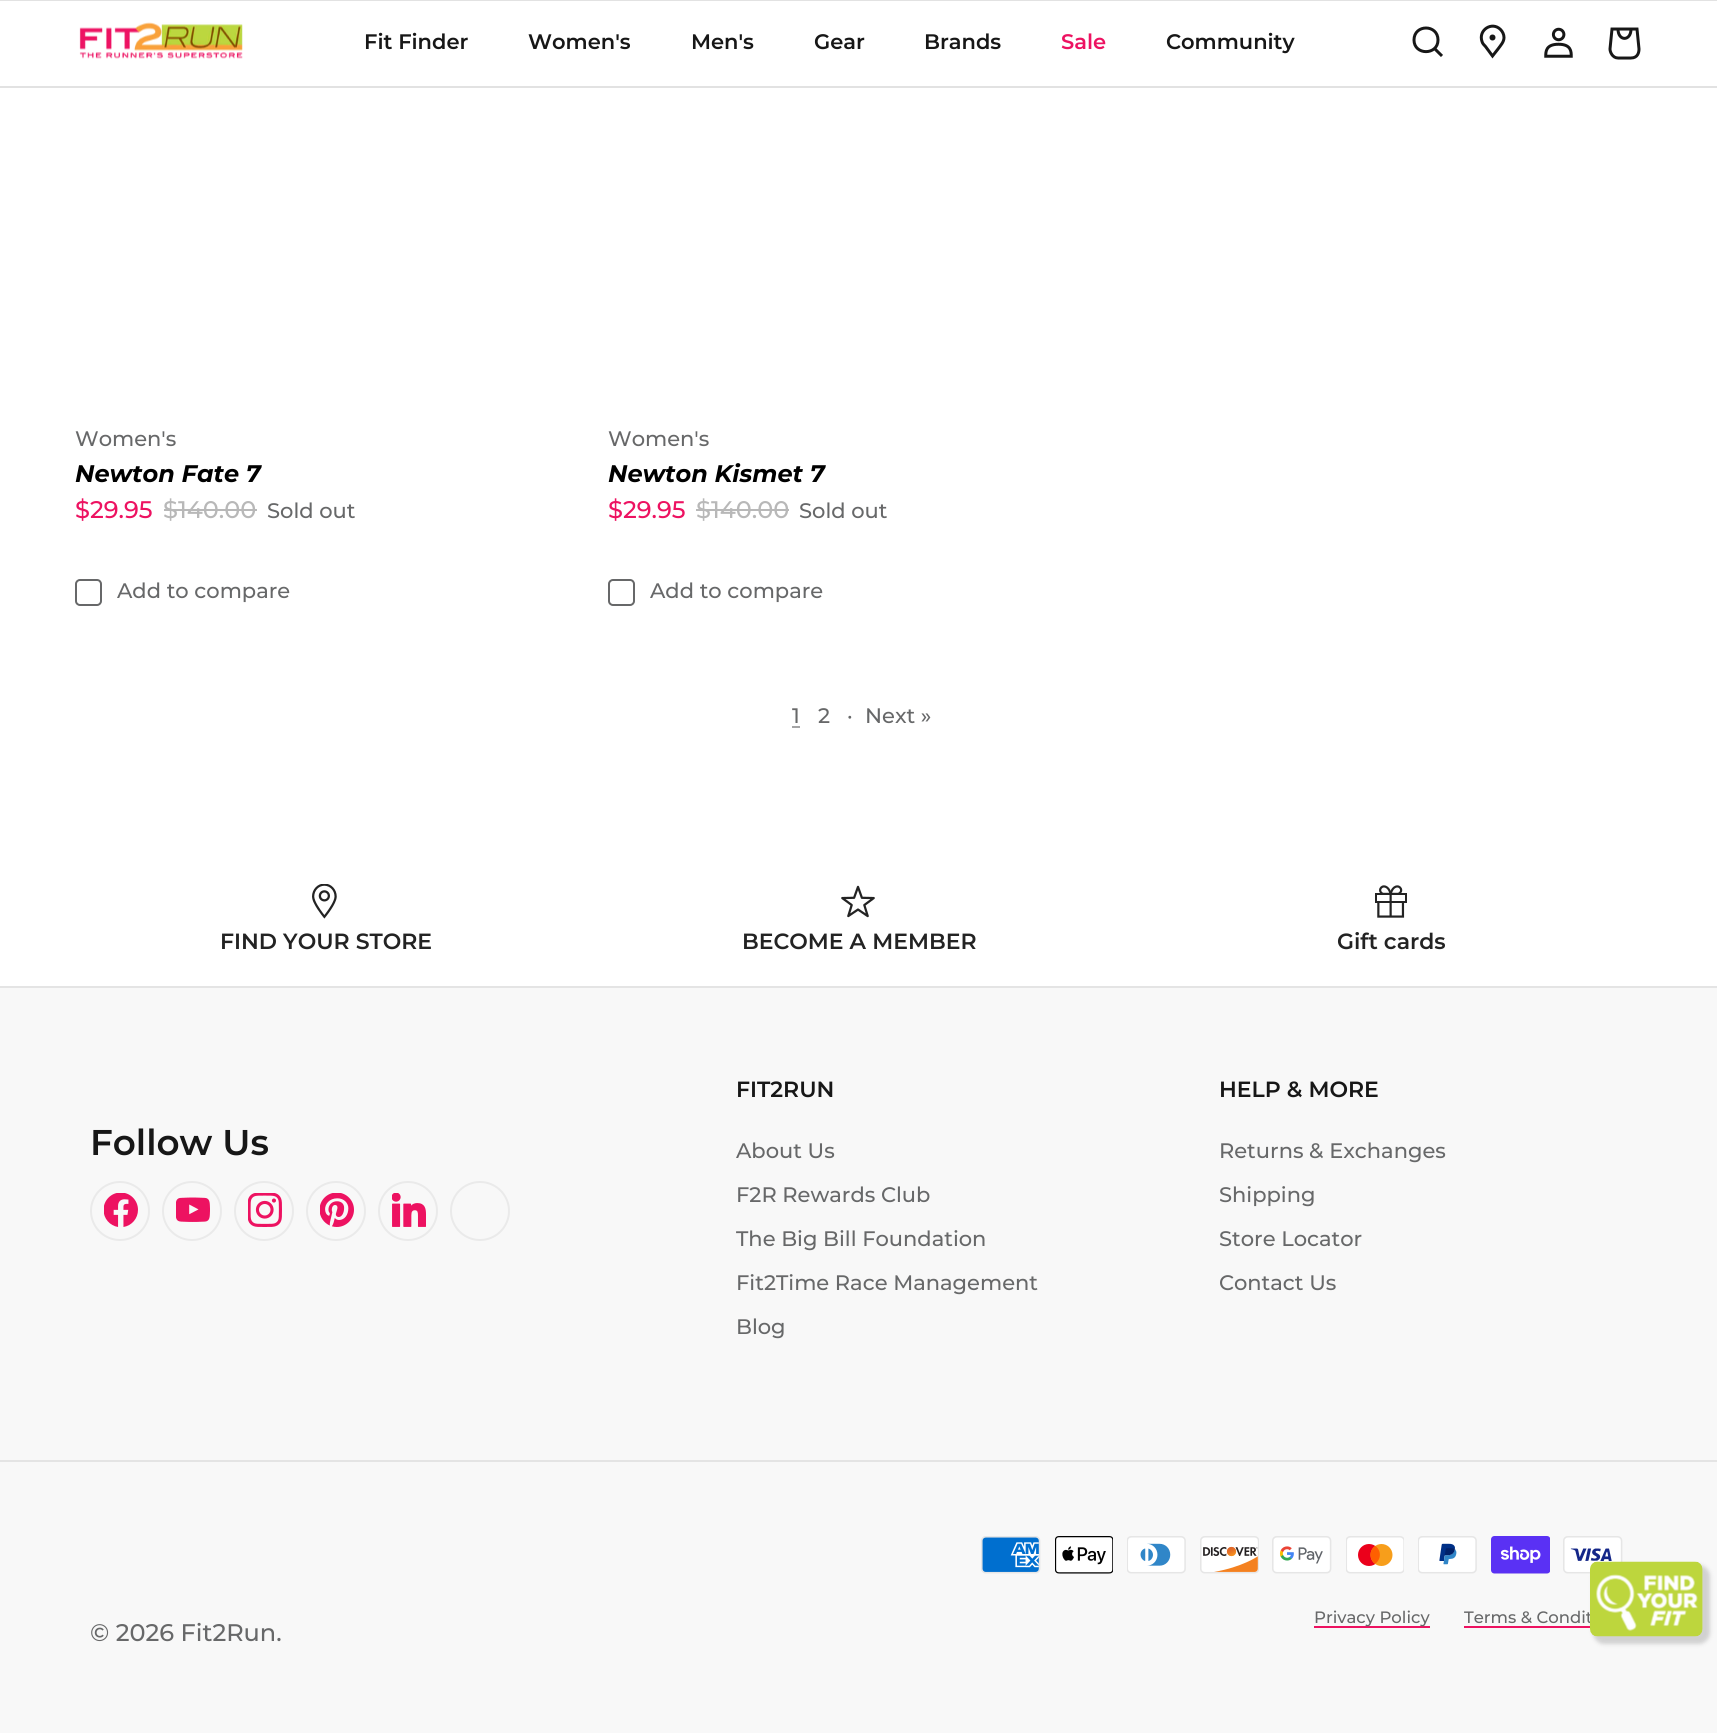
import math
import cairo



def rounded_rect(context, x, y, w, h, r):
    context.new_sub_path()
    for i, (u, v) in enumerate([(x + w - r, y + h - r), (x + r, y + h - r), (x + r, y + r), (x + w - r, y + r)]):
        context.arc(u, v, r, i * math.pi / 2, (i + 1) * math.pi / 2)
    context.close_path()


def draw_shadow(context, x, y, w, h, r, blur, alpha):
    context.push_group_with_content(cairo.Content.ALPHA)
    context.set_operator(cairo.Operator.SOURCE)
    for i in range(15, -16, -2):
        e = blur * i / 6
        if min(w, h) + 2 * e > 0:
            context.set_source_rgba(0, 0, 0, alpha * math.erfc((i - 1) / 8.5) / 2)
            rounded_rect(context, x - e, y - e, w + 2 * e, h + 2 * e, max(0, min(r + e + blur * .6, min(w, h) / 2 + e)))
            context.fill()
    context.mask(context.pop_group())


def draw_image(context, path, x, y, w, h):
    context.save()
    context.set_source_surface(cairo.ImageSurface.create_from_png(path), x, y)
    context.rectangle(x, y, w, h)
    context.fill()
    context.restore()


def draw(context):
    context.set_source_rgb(1, 1, 1)
    context.paint()
    context.set_source_rgb(226 / 255, 226 / 255, 226 / 255)
    context.rectangle(0, 0, 1717, 1)
    context.fill()
    context.rectangle(0, 86, 1717, 2)
    context.fill()
    draw_image(context, "images/1.png", 79, 22, 164, 37)
    context.new_path()
    context.move_to(1442, 56)
    context.line_to(1435, 49)
    context.move_to(1438, 40)
    context.curve_to(1438, 55.5, 1414, 55.5, 1414, 40)
    context.curve_to(1414, 24, 1438, 24, 1438, 40)
    context.close_path()
    context.set_source_rgb(23 / 255, 23 / 255, 23 / 255)
    context.set_line_width(3)
    context.stroke()
    context.new_path()
    context.move_to(1504, 37.5)
    context.curve_to(1504, 42, 1500.5, 45.5, 1498, 49)
    context.line_to(1492.5, 56)
    context.line_to(1485.5, 46.5)
    context.curve_to(1484, 45, 1482.5, 43.5, 1482, 41.5)
    context.curve_to(1478, 30, 1492, 21, 1500.5, 29.5)
    context.curve_to(1502.5, 31.5, 1504, 34.5, 1504, 37.5)
    context.close_path()
    context.stroke()
    context.arc(1492.5, 37.5, 3, 0, 2 * math.pi)
    context.fill()
    draw_image(context, "images/2.png", 1544, 27, 29, 31)
    context.new_path()
    context.move_to(1618, 29)
    context.curve_to(1618, 41.5, 1631, 41.5, 1631, 29)
    context.move_to(1612, 29)
    context.line_to(1637, 29)
    context.line_to(1639, 49)
    context.curve_to(1639, 52, 1638, 58, 1631, 58)
    context.line_to(1618, 58)
    context.curve_to(1612.5, 58, 1610, 52, 1610, 49)
    context.close_path()
    context.stroke()
    context.set_source_rgb(184 / 255, 184 / 255, 184 / 255)
    context.rectangle(164, 509, 93, 2)
    context.fill()
    rounded_rect(context, 76, 580, 25, 25, 4)
    context.set_source_rgb(103 / 255, 104 / 255, 105 / 255)
    context.set_line_width(2)
    context.stroke()
    context.set_source_rgb(184 / 255, 184 / 255, 184 / 255)
    context.rectangle(696, 509, 93, 2)
    context.fill()
    rounded_rect(context, 609, 580, 25, 25, 4)
    context.set_source_rgb(103 / 255, 104 / 255, 105 / 255)
    context.stroke()
    context.set_source_rgb(164 / 255, 164 / 255, 165 / 255)
    context.rectangle(792, 726, 8, 2)
    context.fill()
    draw_image(context, "images/3.png", 312, 884, 25, 35)
    draw_image(context, "images/4.png", 841, 885, 34, 33)
    draw_image(context, "images/5.png", 1375, 885, 32, 33)
    context.set_source_rgb(248 / 255, 248 / 255, 248 / 255)
    context.rectangle(0, 988, 1717, 745)
    context.fill()
    context.set_source_rgb(228 / 255, 228 / 255, 228 / 255)
    context.rectangle(0, 986, 1717, 2)
    context.fill()
    context.arc(120, 1211, 29, 0, 2 * math.pi)
    context.set_source_rgb(234 / 255, 234 / 255, 234 / 255)
    context.stroke()
    draw_image(context, "images/6.png", 104, 1193, 34, 34)
    context.arc(192, 1211, 29, 0, 2 * math.pi)
    context.stroke()
    draw_image(context, "images/7.png", 176, 1197, 34, 25)
    context.arc(264, 1211, 29, 0, 2 * math.pi)
    context.stroke()
    draw_image(context, "images/8.png", 248, 1193, 34, 34)
    context.arc(336, 1211, 29, 0, 2 * math.pi)
    context.stroke()
    draw_image(context, "images/9.png", 320, 1193, 34, 34)
    context.arc(408, 1211, 29, 0, 2 * math.pi)
    context.stroke()
    draw_image(context, "images/10.png", 392, 1193, 34, 34)
    context.arc(480, 1211, 29, 0, 2 * math.pi)
    context.stroke()
    context.set_source_rgb(228 / 255, 228 / 255, 228 / 255)
    context.rectangle(0, 1460, 1717, 2)
    context.fill()
    draw_image(context, "images/11.png", 981, 1536, 60, 38)
    draw_image(context, "images/12.png", 1055, 1536, 58, 38)
    draw_image(context, "images/13.png", 1127, 1536, 59, 38)
    draw_image(context, "images/14.png", 1200, 1536, 59, 38)
    draw_image(context, "images/15.png", 1272, 1536, 60, 38)
    draw_image(context, "images/16.png", 1346, 1536, 58, 38)
    draw_image(context, "images/17.png", 1418, 1536, 59, 38)
    draw_image(context, "images/18.png", 1491, 1536, 59, 38)
    draw_image(context, "images/19.png", 1563, 1536, 60, 38)
    context.set_source_rgb(237 / 255, 18 / 255, 97 / 255)
    context.rectangle(1314, 1626, 116, 2)
    context.fill()
    context.rectangle(1464, 1626, 126, 2)
    context.fill()
    context.set_source_rgb(155 / 255, 155 / 255, 155 / 255)
    draw_shadow(context, 1593, 1565, 117, 79, 11, 2, 0.42)
    context.select_font_face("Montserrat SemiBold")
    context.set_font_size(21)
    context.set_source_rgb(23 / 255, 23 / 255, 23 / 255)
    context.move_to(364, 49)
    context.show_text("Fit Finder")
    context.move_to(528, 49)
    context.show_text("Women's")
    context.move_to(691, 49)
    context.show_text("Men's")
    context.move_to(814, 49)
    context.show_text("Gear")
    context.move_to(924, 49)
    context.show_text("Brands")
    context.set_source_rgb(237 / 255, 18 / 255, 97 / 255)
    context.move_to(1061, 49)
    context.show_text("Sale")
    context.set_source_rgb(23 / 255, 23 / 255, 23 / 255)
    context.move_to(1166, 49)
    context.show_text("Community")
    context.select_font_face("Montserrat Medium")
    context.set_source_rgb(103 / 255, 104 / 255, 105 / 255)
    context.move_to(75, 446)
    context.show_text("Women's")
    context.select_font_face("Montserrat", cairo.FontSlant.ITALIC, cairo.FontWeight.BOLD)
    context.set_font_size(24)
    context.set_source_rgb(0, 0, 0)
    context.move_to(75, 482)
    context.show_text("Newton Fate 7")
    context.select_font_face("Montserrat Medium")
    context.set_source_rgb(237 / 255, 18 / 255, 97 / 255)
    context.move_to(75, 518)
    context.show_text("$29.95")
    context.set_source_rgb(184 / 255, 184 / 255, 184 / 255)
    context.move_to(163, 518)
    context.show_text("$140.00")
    context.set_font_size(21)
    context.set_source_rgb(103 / 255, 104 / 255, 105 / 255)
    context.move_to(267, 518)
    context.show_text("Sold out")
    context.move_to(117, 598)
    context.show_text("Add to compare")
    context.move_to(608, 446)
    context.show_text("Women's")
    context.select_font_face("Montserrat", cairo.FontSlant.ITALIC, cairo.FontWeight.BOLD)
    context.set_font_size(24)
    context.set_source_rgb(0, 0, 0)
    context.move_to(608, 482)
    context.show_text("Newton Kismet 7")
    context.select_font_face("Montserrat Medium")
    context.set_source_rgb(237 / 255, 18 / 255, 97 / 255)
    context.move_to(608, 518)
    context.show_text("$29.95")
    context.set_source_rgb(184 / 255, 184 / 255, 184 / 255)
    context.move_to(696, 518)
    context.show_text("$140.00")
    context.set_font_size(21)
    context.set_source_rgb(103 / 255, 104 / 255, 105 / 255)
    context.move_to(799, 518)
    context.show_text("Sold out")
    context.move_to(650, 598)
    context.show_text("Add to compare")
    context.move_to(792, 723)
    context.show_text("1")
    context.move_to(818, 723)
    context.show_text("2")
    context.move_to(847, 723)
    context.show_text("·")
    context.move_to(865, 723)
    context.show_text("Next »")
    context.select_font_face("Montserrat SemiBold")
    context.set_font_size(22)
    context.set_source_rgb(35 / 255, 35 / 255, 35 / 255)
    context.move_to(220, 949)
    context.show_text("FIND YOUR STORE")
    context.move_to(742, 949)
    context.show_text("BECOME A MEMBER")
    context.move_to(1337, 949)
    context.show_text("Gift cards")
    context.set_font_size(35.75)
    context.set_source_rgb(23 / 255, 23 / 255, 23 / 255)
    context.move_to(90, 1155)
    context.show_text("Follow Us")
    context.set_font_size(22)
    context.move_to(736, 1097)
    context.show_text("FIT2RUN")
    context.select_font_face("Montserrat Medium")
    context.set_font_size(21)
    context.set_source_rgb(103 / 255, 104 / 255, 105 / 255)
    context.move_to(736, 1158)
    context.show_text("About Us")
    context.move_to(736, 1202)
    context.show_text("F2R Rewards Club")
    context.move_to(736, 1246)
    context.show_text("The Big Bill Foundation")
    context.move_to(736, 1290)
    context.show_text("Fit2Time Race Management")
    context.move_to(736, 1334)
    context.show_text("Blog")
    context.select_font_face("Montserrat SemiBold")
    context.set_font_size(22)
    context.set_source_rgb(23 / 255, 23 / 255, 23 / 255)
    context.move_to(1219, 1097)
    context.show_text("HELP & MORE")
    context.select_font_face("Montserrat Medium")
    context.set_font_size(21)
    context.set_source_rgb(103 / 255, 104 / 255, 105 / 255)
    context.move_to(1219, 1158)
    context.show_text("Returns & Exchanges")
    context.move_to(1219, 1202)
    context.show_text("Shipping")
    context.move_to(1219, 1246)
    context.show_text("Store Locator")
    context.move_to(1219, 1290)
    context.show_text("Contact Us")
    context.set_font_size(16.5)
    context.move_to(1314, 1623)
    context.show_text("Privacy Policy")
    context.move_to(1464, 1623)
    context.show_text("Terms & Condit")
    context.set_font_size(24)
    context.move_to(90, 1641)
    context.show_text("© 2026 Fit2Run.")
    draw_image(context, "images/20.png", 1590, 1561, 113, 76)


surface = cairo.ImageSurface(cairo.Format.RGB24, 1717, 1733)
context = cairo.Context(surface)
options = cairo.FontOptions()
options.set_hint_metrics(cairo.HintMetrics.OFF)
options.set_hint_style(cairo.HintStyle.NONE)
context.set_font_options(options)
context.set_miter_limit(4)
draw(context)
surface.write_to_png("out.png")
